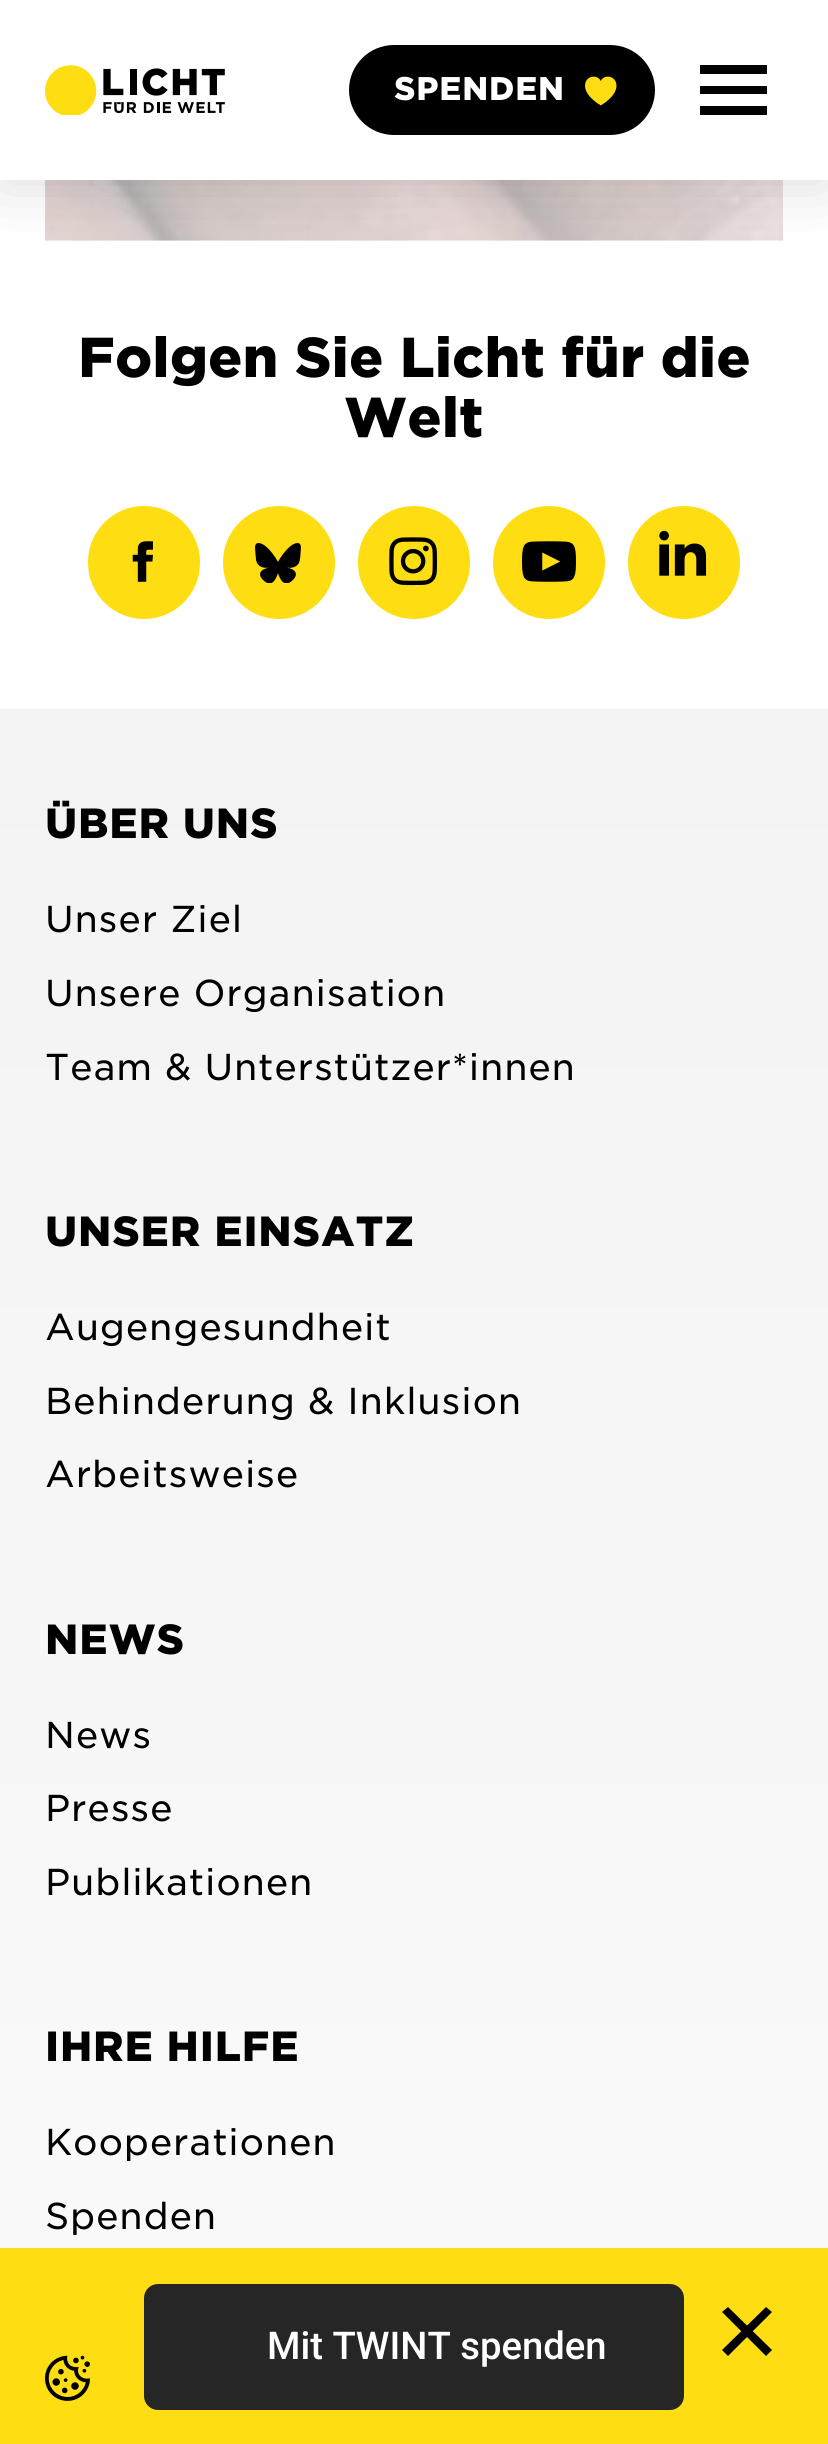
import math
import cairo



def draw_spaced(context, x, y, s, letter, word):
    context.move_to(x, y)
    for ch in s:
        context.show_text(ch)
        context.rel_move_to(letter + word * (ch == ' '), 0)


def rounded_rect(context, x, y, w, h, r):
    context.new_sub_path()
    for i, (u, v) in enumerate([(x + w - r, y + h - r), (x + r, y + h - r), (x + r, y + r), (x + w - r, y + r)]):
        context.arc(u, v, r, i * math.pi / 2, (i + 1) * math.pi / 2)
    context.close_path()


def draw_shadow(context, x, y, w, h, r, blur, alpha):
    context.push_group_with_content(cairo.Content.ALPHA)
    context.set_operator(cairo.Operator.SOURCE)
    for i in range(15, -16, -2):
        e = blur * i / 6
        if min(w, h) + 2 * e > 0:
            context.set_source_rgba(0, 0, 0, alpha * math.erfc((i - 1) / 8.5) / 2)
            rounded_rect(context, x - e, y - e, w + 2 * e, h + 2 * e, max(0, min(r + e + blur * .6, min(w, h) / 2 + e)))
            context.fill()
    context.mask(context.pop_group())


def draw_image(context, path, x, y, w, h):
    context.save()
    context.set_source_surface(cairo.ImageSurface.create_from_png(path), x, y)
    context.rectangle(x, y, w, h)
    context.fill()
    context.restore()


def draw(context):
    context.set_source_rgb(1, 1, 1)
    context.paint()
    draw_image(context, "images/3.png", 45, 180, 738, 61)
    context.set_source_rgb(0, 0, 0)
    draw_shadow(context, 0, 0, 828, 180, 0, 34, 0.15)
    context.set_source_rgb(1, 1, 1)
    context.rectangle(0, 0, 828, 180)
    context.fill()
    draw_image(context, "images/1.png", 45, 65, 180, 50)
    context.set_source_rgb(0, 0, 0)
    rounded_rect(context, 349, 45, 306, 90, 45)
    context.fill()
    draw_image(context, "images/2.png", 585, 76, 32, 30)
    context.new_path()
    context.move_to(767, 74)
    context.line_to(700, 74)
    context.line_to(700, 65)
    context.line_to(767, 65)
    context.close_path()
    context.move_to(767, 86)
    context.line_to(700, 86)
    context.line_to(700, 94)
    context.line_to(767, 94)
    context.close_path()
    context.move_to(767, 106)
    context.line_to(700, 106)
    context.line_to(700, 115)
    context.line_to(767, 115)
    context.close_path()
    context.fill()
    context.set_source_rgb(1, 221 / 255, 19 / 255)
    rounded_rect(context, 88, 506, 112, 113, 56)
    context.fill()
    draw_image(context, "images/4.png", 132, 541, 21, 41)
    rounded_rect(context, 223, 506, 112, 113, 56)
    context.fill()
    draw_image(context, "images/5.png", 255, 543, 46, 40)
    rounded_rect(context, 358, 506, 112, 113, 56)
    context.fill()
    draw_image(context, "images/6.png", 389, 537, 48, 49)
    rounded_rect(context, 493, 506, 112, 113, 56)
    context.fill()
    draw_image(context, "images/7.png", 522, 541, 54, 41)
    rounded_rect(context, 628, 506, 112, 113, 56)
    context.fill()
    draw_image(context, "images/8.png", 659, 530, 48, 46)
    gradient = cairo.LinearGradient(414, 709, 414, 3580)
    gradient.add_color_stop_rgba(0, 243 / 255, 243 / 255, 243 / 255, 1)
    gradient.add_color_stop_rgba(1, 1, 1, 1, 1)
    context.set_source(gradient)
    context.rectangle(0, 709, 828, 1539)
    context.fill()
    context.set_source_rgb(1, 221 / 255, 19 / 255)
    context.rectangle(0, 2248, 828, 196)
    context.fill()
    context.set_source_rgb(38 / 255, 38 / 255, 38 / 255)
    rounded_rect(context, 144, 2284, 540, 126, 14)
    context.fill()
    context.set_source_rgb(0, 0, 0)
    context.new_path()
    context.move_to(722, 2350)
    context.line_to(766, 2307)
    context.line_to(772, 2312)
    context.line_to(728, 2356)
    context.close_path()
    context.move_to(728, 2307)
    context.line_to(772, 2350)
    context.line_to(766, 2356)
    context.line_to(722, 2312)
    context.close_path()
    context.fill()
    draw_image(context, "images/9.png", 45, 2355, 45, 46)
    context.select_font_face("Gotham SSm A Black")
    context.set_font_size(31.5)
    context.set_source_rgb(1, 1, 1)
    draw_spaced(context, 394, 100, "SPENDEN", 0.75, 0)
    context.set_font_size(54)
    context.set_source_rgb(0, 0, 0)
    context.move_to(78, 377)
    context.show_text("Folgen Sie Licht für die")
    context.move_to(344, 437)
    context.show_text("Welt")
    context.set_font_size(40.5)
    draw_spaced(context, 45, 838, "ÜBER UNS", 0.75, 0)
    context.select_font_face("Gotham SSm A")
    context.set_font_size(36)
    draw_spaced(context, 45, 932, "Unser Ziel", 0.75, 0)
    draw_spaced(context, 45, 1006, "Unsere Organisation", 0.75, 0)
    draw_spaced(context, 45, 1080, "Team & Unterstützer*innen", 0.75, 0)
    context.select_font_face("Gotham SSm A Black")
    context.set_font_size(40.5)
    draw_spaced(context, 45, 1246, "UNSER EINSATZ", 0.75, 0)
    context.select_font_face("Gotham SSm A")
    context.set_font_size(36)
    draw_spaced(context, 45, 1340, "Augengesundheit", 0.75, 0)
    draw_spaced(context, 45, 1414, "Behinderung & Inklusion", 0.75, 0)
    draw_spaced(context, 45, 1487, "Arbeitsweise", 0.75, 0)
    context.select_font_face("Gotham SSm A Black")
    context.set_font_size(40.5)
    draw_spaced(context, 45, 1654, "NEWS", 0.75, 0)
    context.select_font_face("Gotham SSm A")
    context.set_font_size(36)
    draw_spaced(context, 45, 1748, "News", 0.75, 0)
    draw_spaced(context, 45, 1821, "Presse", 0.75, 0)
    draw_spaced(context, 45, 1895, "Publikationen", 0.75, 0)
    context.select_font_face("Gotham SSm A Black")
    context.set_font_size(40.5)
    draw_spaced(context, 45, 2061, "IHRE HILFE", 0.75, 0)
    context.select_font_face("Gotham SSm A")
    context.set_font_size(36)
    draw_spaced(context, 45, 2155, "Kooperationen", 0.75, 0)
    draw_spaced(context, 45, 2229, "Spenden", 0.75, 0)
    context.select_font_face("Roboto Medium")
    context.set_font_size(38.25)
    context.set_source_rgb(1, 1, 1)
    context.move_to(267, 2359)
    context.show_text("Mit TWINT spenden")


surface = cairo.ImageSurface(cairo.Format.RGB24, 828, 2444)
context = cairo.Context(surface)
options = cairo.FontOptions()
options.set_hint_metrics(cairo.HintMetrics.OFF)
options.set_hint_style(cairo.HintStyle.NONE)
context.set_font_options(options)
context.set_miter_limit(4)
draw(context)
surface.write_to_png("out.png")
